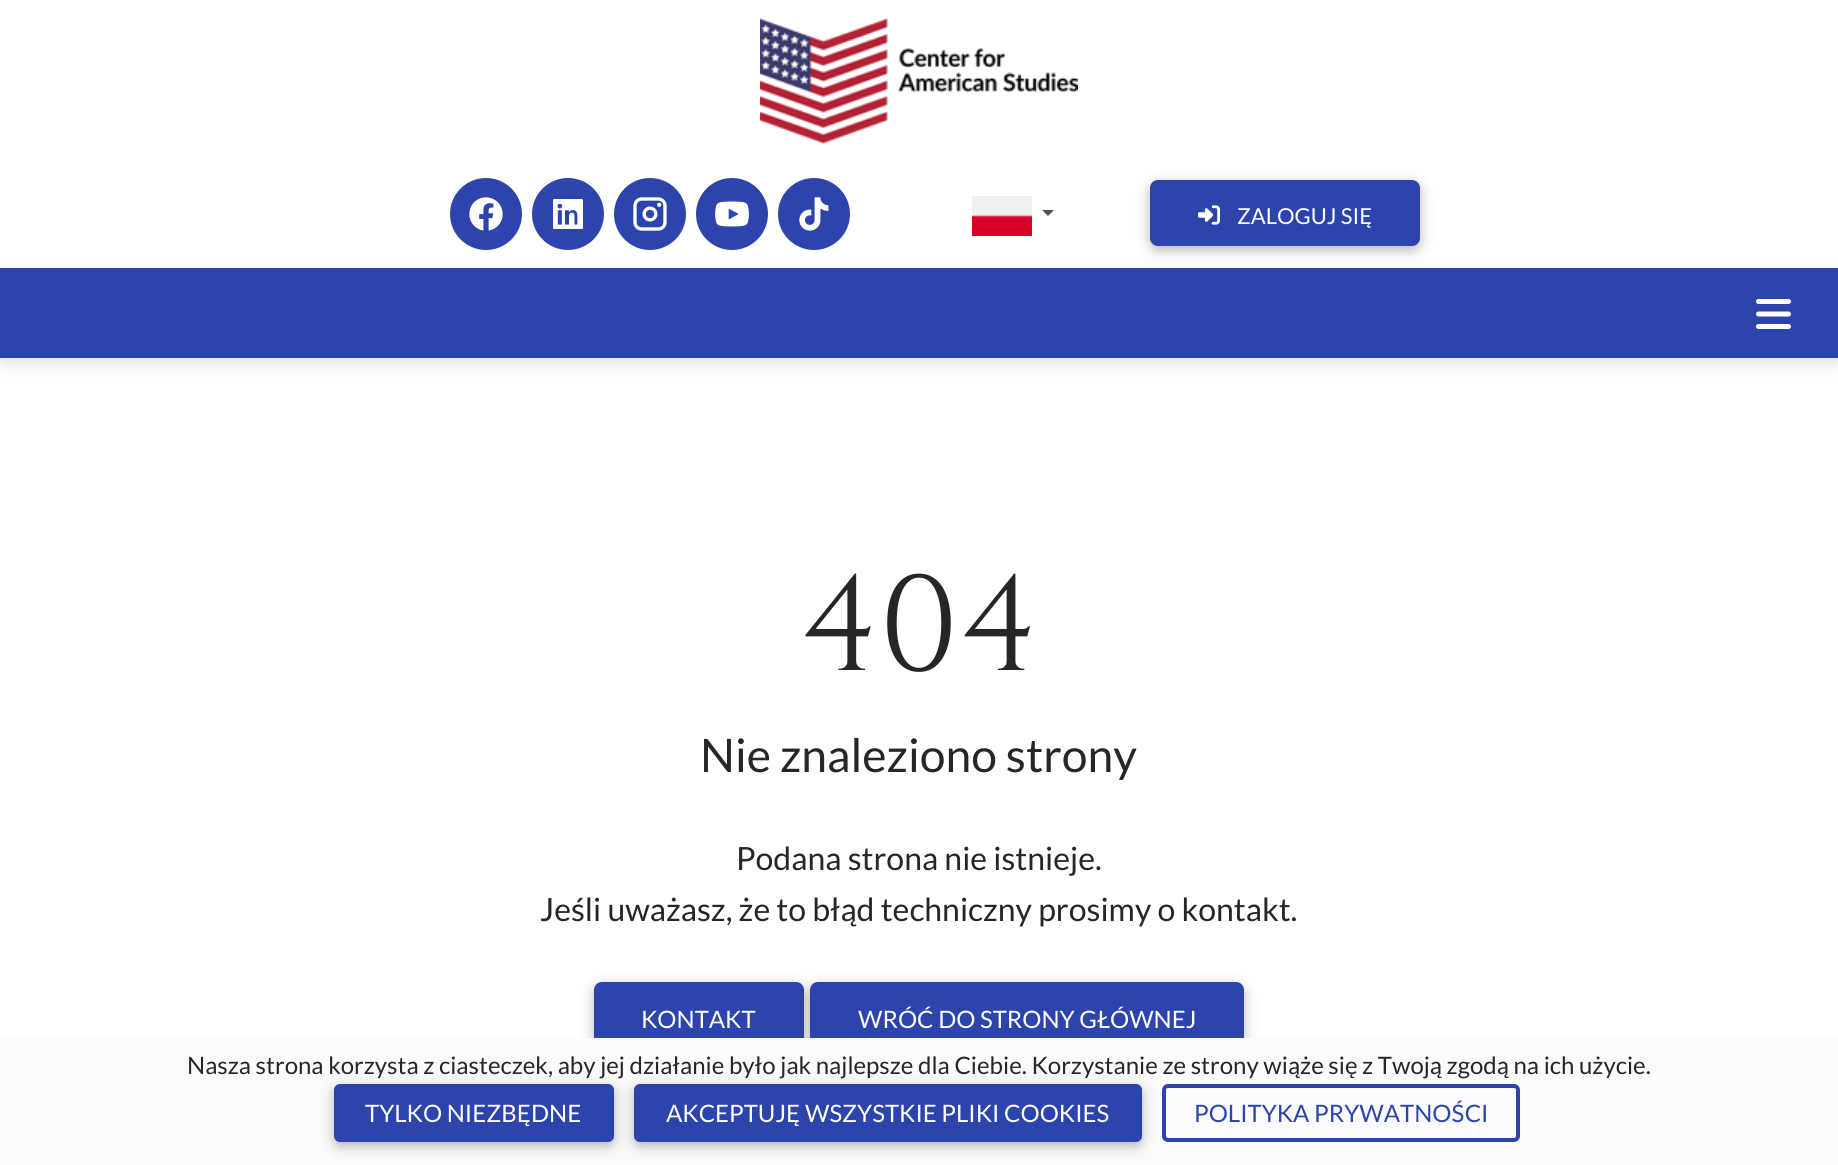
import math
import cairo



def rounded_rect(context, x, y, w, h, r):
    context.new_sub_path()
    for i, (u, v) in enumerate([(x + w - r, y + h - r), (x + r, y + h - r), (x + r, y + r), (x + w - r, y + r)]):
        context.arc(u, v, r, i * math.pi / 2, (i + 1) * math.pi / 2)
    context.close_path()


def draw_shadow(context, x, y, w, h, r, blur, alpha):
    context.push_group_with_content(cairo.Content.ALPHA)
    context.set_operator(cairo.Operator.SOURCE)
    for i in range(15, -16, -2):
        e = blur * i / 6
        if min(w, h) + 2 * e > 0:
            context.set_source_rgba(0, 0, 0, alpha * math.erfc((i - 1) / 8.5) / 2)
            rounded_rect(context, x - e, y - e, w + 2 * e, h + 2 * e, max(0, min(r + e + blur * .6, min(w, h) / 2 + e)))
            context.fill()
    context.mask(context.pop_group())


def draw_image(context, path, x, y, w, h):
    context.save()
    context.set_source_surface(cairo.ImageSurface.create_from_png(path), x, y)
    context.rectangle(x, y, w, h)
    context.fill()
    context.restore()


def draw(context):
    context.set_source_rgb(1, 1, 1)
    context.paint()
    draw_image(context, "images/1.png", 760, 18, 318, 126)
    context.set_source_rgb(45 / 255, 68 / 255, 173 / 255)
    context.arc(486, 214, 36, 0, 2 * math.pi)
    context.fill()
    draw_image(context, "images/2.png", 469, 197, 34, 34)
    context.arc(568, 214, 36, 0, 2 * math.pi)
    context.fill()
    draw_image(context, "images/3.png", 553, 199, 30, 30)
    context.arc(650, 214, 36, 0, 2 * math.pi)
    context.fill()
    draw_image(context, "images/4.png", 633, 197, 34, 34)
    context.arc(732, 214, 36, 0, 2 * math.pi)
    context.fill()
    draw_image(context, "images/5.png", 715, 201, 34, 26)
    context.arc(814, 214, 36, 0, 2 * math.pi)
    context.fill()
    draw_image(context, "images/6.png", 799, 197, 30, 34)
    draw_image(context, "images/7.png", 972, 196, 60, 40)
    context.set_source_rgb(79 / 255, 79 / 255, 79 / 255)
    context.new_path()
    context.move_to(1042, 210)
    context.line_to(1054, 210)
    context.line_to(1048, 216)
    context.close_path()
    context.fill()
    context.set_source_rgb(0, 0, 0)
    draw_shadow(context, 1150, 184, 270, 66, 8, 10, 0.1)
    draw_shadow(context, 1150, 184, 270, 66, 8, 5, 0.2)
    context.set_source_rgb(45 / 255, 68 / 255, 173 / 255)
    rounded_rect(context, 1150, 180, 270, 66, 8)
    context.fill()
    draw_image(context, "images/8.png", 1198, 205, 22, 20)
    context.set_source_rgb(0, 0, 0)
    draw_shadow(context, 0, 272, 1838, 90, 0, 4, 0.05)
    draw_shadow(context, 0, 276, 1838, 90, 0, 12, 0.07)
    context.set_source_rgb(45 / 255, 68 / 255, 173 / 255)
    context.rectangle(0, 268, 1838, 90)
    context.fill()
    draw_image(context, "images/9.png", 1756, 299, 35, 30)
    context.set_source_rgb(0, 0, 0)
    draw_shadow(context, 594, 986, 210, 72, 8, 10, 0.1)
    draw_shadow(context, 594, 986, 210, 72, 8, 5, 0.2)
    context.set_source_rgb(45 / 255, 68 / 255, 173 / 255)
    rounded_rect(context, 594, 982, 210, 72, 8)
    context.fill()
    context.set_source_rgb(0, 0, 0)
    draw_shadow(context, 810, 986, 434, 72, 8, 10, 0.1)
    draw_shadow(context, 810, 986, 434, 72, 8, 5, 0.2)
    context.set_source_rgb(45 / 255, 68 / 255, 173 / 255)
    rounded_rect(context, 810, 982, 434, 72, 8)
    context.fill()
    context.set_source_rgb(251 / 255, 251 / 255, 251 / 255)
    context.rectangle(0, 1038, 1838, 127)
    context.fill()
    context.set_source_rgb(0, 0, 0)
    draw_shadow(context, 334, 1088, 280, 58, 6, 10, 0.1)
    draw_shadow(context, 334, 1088, 280, 58, 6, 5, 0.2)
    context.set_source_rgb(45 / 255, 68 / 255, 173 / 255)
    rounded_rect(context, 334, 1084, 280, 58, 6)
    context.fill()
    context.set_source_rgb(0, 0, 0)
    draw_shadow(context, 634, 1088, 508, 58, 6, 10, 0.1)
    draw_shadow(context, 634, 1088, 508, 58, 6, 5, 0.2)
    context.set_source_rgb(45 / 255, 68 / 255, 173 / 255)
    rounded_rect(context, 634, 1084, 508, 58, 6)
    context.fill()
    rounded_rect(context, 1164, 1086, 354, 54, 4)
    context.set_line_width(4)
    context.stroke()
    context.select_font_face("Lato")
    context.set_font_size(22)
    context.set_source_rgb(1, 1, 1)
    context.move_to(1237, 224)
    context.show_text("ZALOGUJ SIĘ")
    context.select_font_face("Cinzel")
    context.set_font_size(135)
    context.set_source_rgb(38 / 255, 38 / 255, 38 / 255)
    context.move_to(800, 670)
    context.show_text("404")
    context.select_font_face("Lato")
    context.set_font_size(46.25)
    context.move_to(700, 772)
    context.show_text("Nie znaleziono strony")
    context.set_font_size(32)
    context.move_to(736, 870)
    context.show_text("Podana strona nie istnieje.")
    context.move_to(540, 921)
    context.show_text("Jeśli uważasz, że to błąd techniczny prosimy o kontakt.")
    context.set_font_size(24)
    context.set_source_rgb(1, 1, 1)
    context.move_to(641, 1028)
    context.show_text("KONTAKT")
    context.move_to(858, 1028)
    context.show_text("WRÓĆ DO STRONY GŁÓWNEJ")
    context.set_source_rgb(38 / 255, 38 / 255, 38 / 255)
    context.move_to(187, 1074)
    context.show_text("Nasza strona korzysta z ciasteczek, aby jej działanie było jak najlepsze dla Ciebie. Korzystanie ze strony wiąże się z Twoją zgodą na ich użycie.")
    context.set_source_rgb(1, 1, 1)
    context.move_to(365, 1122)
    context.show_text("TYLKO NIEZBĘDNE")
    context.move_to(666, 1122)
    context.show_text("AKCEPTUJĘ WSZYSTKIE PLIKI COOKIES")
    context.set_source_rgb(45 / 255, 68 / 255, 173 / 255)
    context.move_to(1194, 1122)
    context.show_text("POLITYKA PRYWATNOŚCI")


surface = cairo.ImageSurface(cairo.Format.RGB24, 1838, 1165)
context = cairo.Context(surface)
options = cairo.FontOptions()
options.set_hint_metrics(cairo.HintMetrics.OFF)
options.set_hint_style(cairo.HintStyle.NONE)
context.set_font_options(options)
context.set_miter_limit(4)
draw(context)
surface.write_to_png("out.png")
